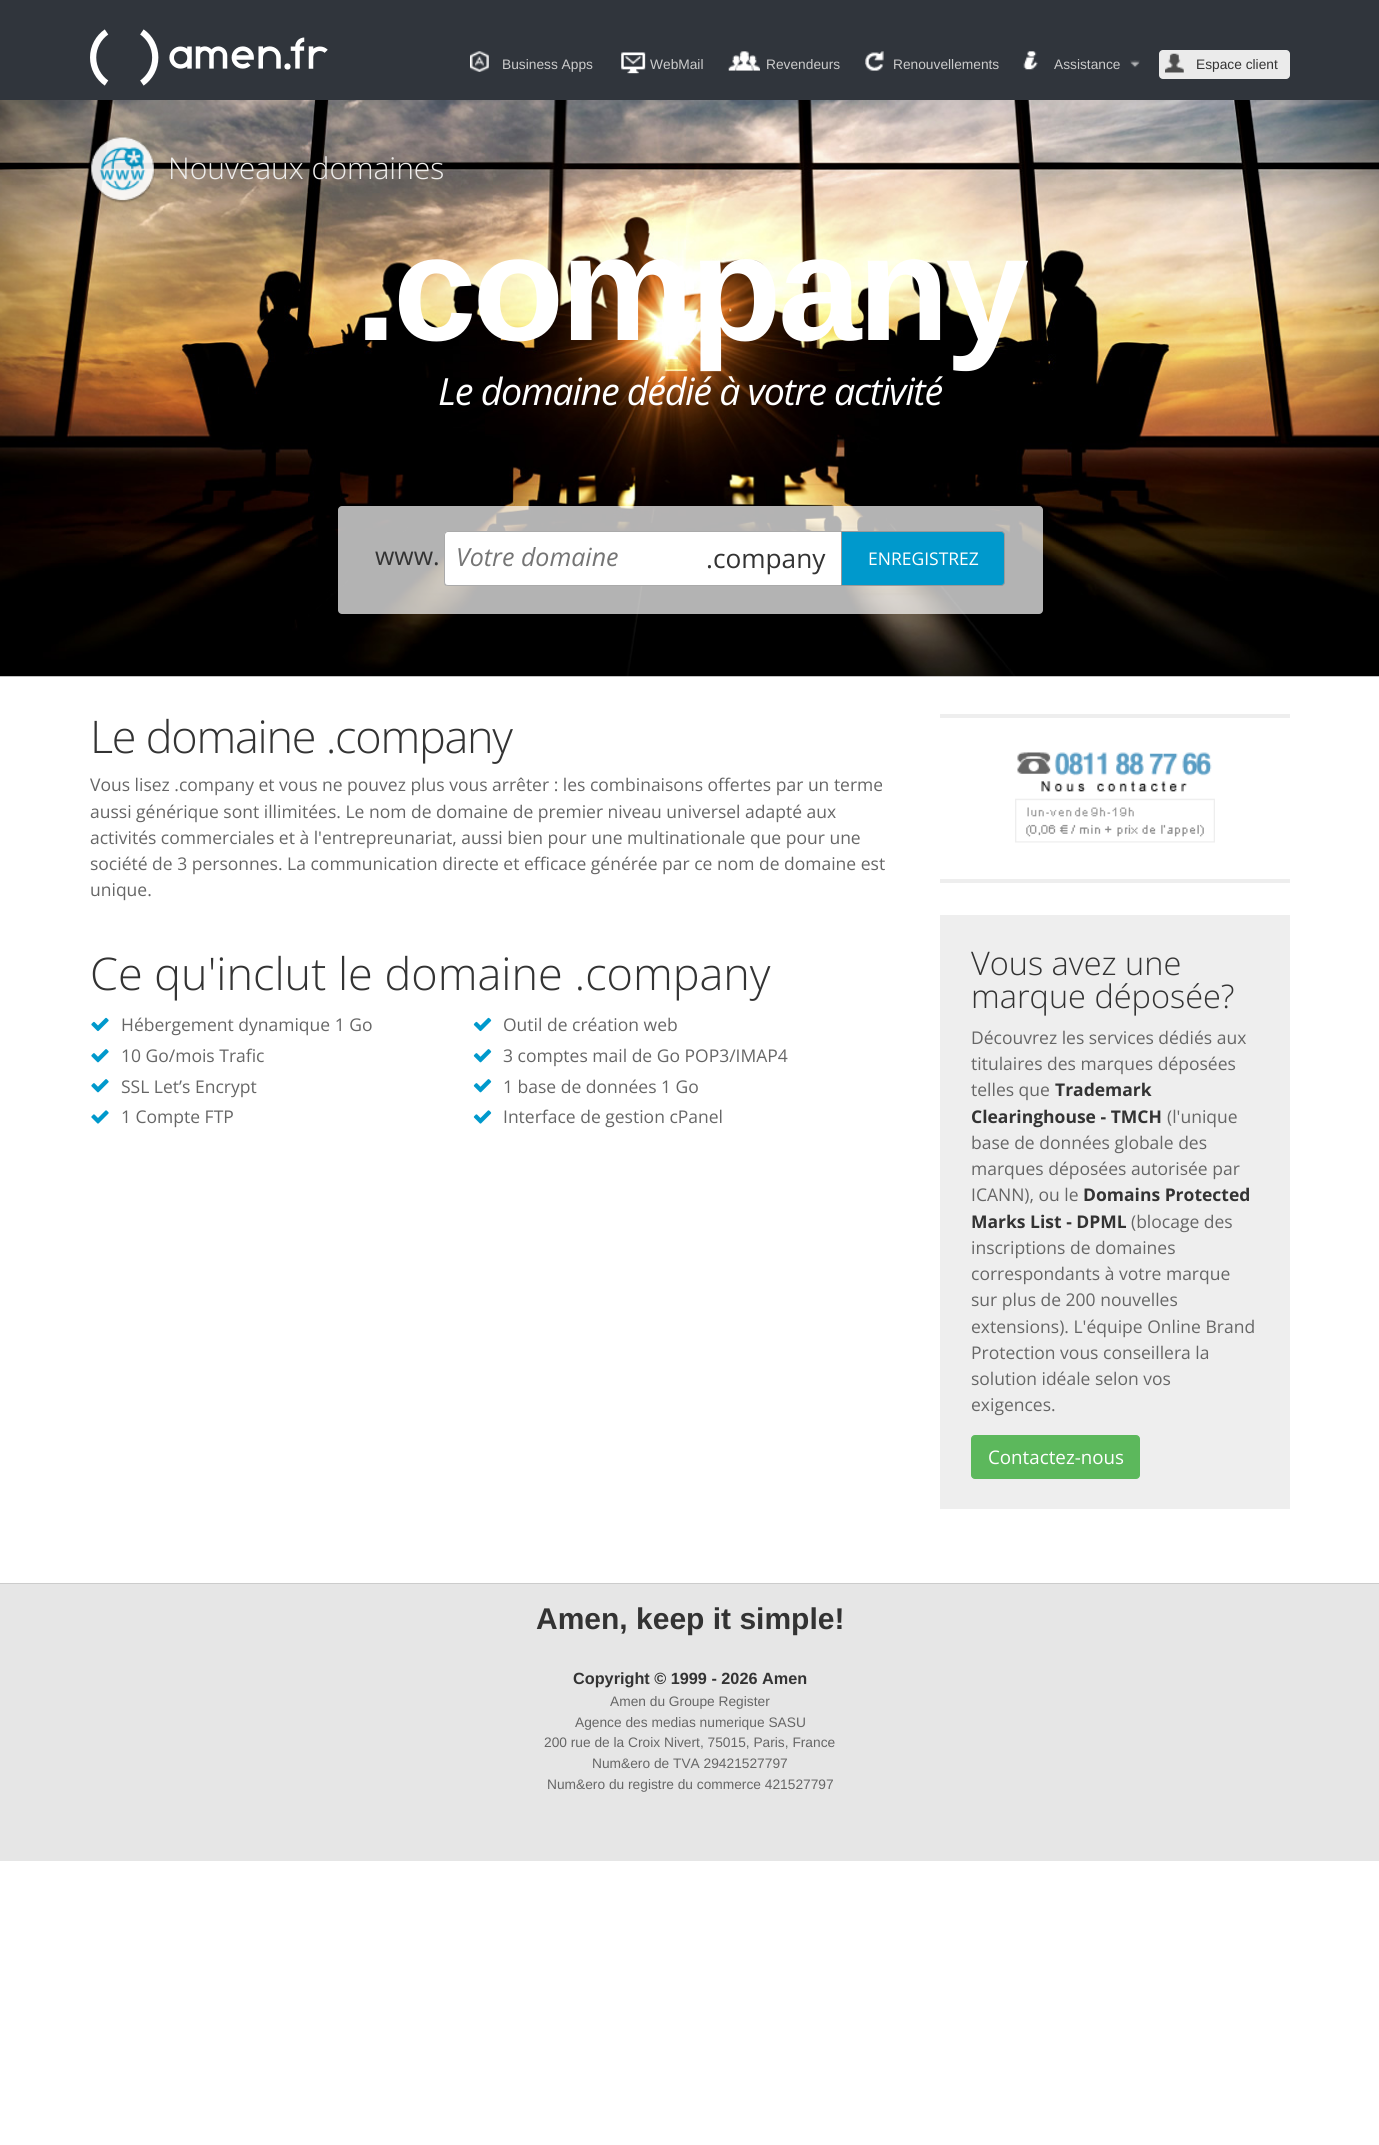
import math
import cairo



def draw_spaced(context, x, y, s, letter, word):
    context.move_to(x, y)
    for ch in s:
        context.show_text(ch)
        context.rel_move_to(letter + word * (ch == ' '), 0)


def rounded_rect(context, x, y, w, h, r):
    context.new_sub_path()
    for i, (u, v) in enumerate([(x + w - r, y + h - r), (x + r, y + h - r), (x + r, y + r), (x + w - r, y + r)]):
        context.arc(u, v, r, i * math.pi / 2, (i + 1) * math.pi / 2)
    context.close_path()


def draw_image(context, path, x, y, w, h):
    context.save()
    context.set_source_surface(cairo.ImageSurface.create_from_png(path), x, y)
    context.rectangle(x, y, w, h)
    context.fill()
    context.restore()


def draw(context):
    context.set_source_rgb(1, 1, 1)
    context.paint()
    context.set_source_rgb(48 / 255, 53 / 255, 60 / 255)
    context.rectangle(0, 0, 1379, 100)
    context.fill()
    draw_image(context, "images/1.png", 90, 29, 238, 57)
    draw_image(context, "images/2.png", 470, 51, 19, 21)
    draw_image(context, "images/3.png", 621, 52, 25, 22)
    draw_image(context, "images/4.png", 728, 51, 32, 20)
    draw_image(context, "images/5.png", 865, 51, 19, 20)
    draw_image(context, "images/6.png", 1023, 51, 15, 19)
    draw_image(context, "images/7.png", 1130, 60, 10, 8)
    context.set_source_rgb(235 / 255, 235 / 255, 235 / 255)
    rounded_rect(context, 1159, 50, 131, 29, 4)
    context.fill()
    draw_image(context, "images/8.png", 1165, 53, 19, 20)
    draw_image(context, "images/9.png", 0, 100, 1379, 577)
    draw_image(context, "images/10.png", 91, 137, 64, 66)
    context.set_source_rgba(1, 1, 1, 0.7)
    rounded_rect(context, 338, 506, 705, 108, 4)
    context.fill()
    context.set_source_rgb(1, 1, 1)
    context.new_path()
    context.move_to(448, 531)
    context.line_to(841, 531)
    context.line_to(841, 586)
    context.line_to(448, 586)
    context.curve_to(446, 586, 444, 584, 444, 582)
    context.line_to(444, 535)
    context.curve_to(444, 533, 446, 531, 448, 531)
    context.close_path()
    context.fill()
    context.set_source_rgb(170 / 255, 170 / 255, 170 / 255)
    context.set_fill_rule(cairo.FillRule.EVEN_ODD)
    context.new_path()
    context.move_to(448, 531)
    context.line_to(841, 531)
    context.line_to(841, 586)
    context.line_to(448, 586)
    context.curve_to(445, 586, 444, 585, 444, 582)
    context.line_to(444, 535)
    context.curve_to(444, 533, 445, 531, 448, 531)
    context.close_path()
    context.move_to(448, 532)
    context.line_to(841, 532)
    context.line_to(841, 585)
    context.line_to(448, 585)
    context.curve_to(446, 585, 445, 584, 445, 582)
    context.line_to(445, 535)
    context.curve_to(445, 534, 446, 532, 448, 532)
    context.close_path()
    context.fill()
    context.set_source_rgb(0, 153 / 255, 204 / 255)
    context.new_path()
    context.move_to(841.5, 531.5)
    context.line_to(1001, 531.5)
    context.curve_to(1003, 531.5, 1004.5, 533, 1004.5, 535)
    context.line_to(1004.5, 582)
    context.curve_to(1004.5, 584, 1003, 585.5, 1001, 585.5)
    context.line_to(841.5, 585.5)
    context.close_path()
    context.fill_preserve()
    context.set_source_rgb(153 / 255, 153 / 255, 153 / 255)
    context.set_line_width(1)
    context.stroke()
    draw_image(context, "images/11.png", 91, 1017, 18, 15)
    draw_image(context, "images/12.png", 473, 1017, 19, 15)
    draw_image(context, "images/13.png", 91, 1049, 18, 14)
    draw_image(context, "images/14.png", 473, 1049, 19, 14)
    draw_image(context, "images/13.png", 91, 1079, 18, 14)
    draw_image(context, "images/14.png", 473, 1079, 19, 14)
    draw_image(context, "images/15.png", 91, 1110, 18, 14)
    draw_image(context, "images/16.png", 473, 1110, 19, 14)
    context.set_source_rgb(238 / 255, 238 / 255, 238 / 255)
    context.rectangle(940, 714, 350, 4)
    context.fill()
    context.rectangle(940, 879, 350, 4)
    context.fill()
    draw_image(context, "images/17.png", 1015, 752, 200, 91)
    context.rectangle(940, 915, 350, 594)
    context.fill()
    context.set_source_rgb(92 / 255, 184 / 255, 92 / 255)
    rounded_rect(context, 971.5, 1435.5, 168, 43, 3.5)
    context.fill_preserve()
    context.stroke()
    context.set_source_rgb(230 / 255, 230 / 255, 230 / 255)
    context.rectangle(0, 1584, 1379, 277)
    context.fill()
    context.set_source_rgb(204 / 255, 204 / 255, 204 / 255)
    context.rectangle(0, 1583, 1379, 1)
    context.fill()
    context.select_font_face("Liberation Sans")
    context.set_font_size(13.75)
    context.move_to(502, 69)
    context.show_text("Business Apps")
    context.move_to(650, 69)
    context.show_text("WebMail")
    context.move_to(766, 69)
    context.show_text("Revendeurs")
    context.move_to(893, 69)
    context.show_text("Renouvellements")
    context.move_to(1054, 69)
    context.show_text("Assistance")
    context.set_source_rgb(51 / 255, 51 / 255, 51 / 255)
    context.move_to(1196, 69)
    context.show_text("Espace client")
    context.select_font_face("Open Sans Light")
    context.set_font_size(30)
    context.set_source_rgb(238 / 255, 237 / 255, 236 / 255)
    context.move_to(168, 179)
    context.show_text("Nouveaux domaines")
    context.select_font_face("Liberation Sans", cairo.FontSlant.NORMAL, cairo.FontWeight.BOLD)
    context.set_font_size(150)
    context.set_source_rgb(1, 1, 1)
    draw_spaced(context, 355, 340, ".company", -3.75, 0)
    context.select_font_face("Open Sans", cairo.FontSlant.ITALIC)
    context.set_font_size(37.5)
    draw_spaced(context, 438, 405, "Le domaine dédié à votre activité", -1.25, 0)
    context.select_font_face("Open Sans")
    context.set_font_size(25)
    context.set_source_rgb(51 / 255, 51 / 255, 51 / 255)
    context.move_to(375, 565)
    context.show_text("www.")
    context.select_font_face("Open Sans", cairo.FontSlant.ITALIC)
    context.set_source_rgb(117 / 255, 117 / 255, 117 / 255)
    context.move_to(456, 566)
    context.show_text("Votre domaine")
    context.select_font_face("Open Sans")
    context.set_font_size(26.25)
    context.set_source_rgb(51 / 255, 51 / 255, 51 / 255)
    context.move_to(706, 568)
    context.show_text(".company")
    context.set_font_size(17.5)
    context.set_source_rgb(1, 1, 1)
    context.move_to(868, 565)
    context.show_text("ENREGISTREZ")
    context.select_font_face("Open Sans Light")
    context.set_font_size(45)
    context.set_source_rgb(51 / 255, 51 / 255, 51 / 255)
    draw_spaced(context, 90, 753, "Le domaine .company", -1.25, 0)
    context.select_font_face("Open Sans")
    context.set_font_size(17.5)
    context.set_source_rgb(102 / 255, 102 / 255, 102 / 255)
    context.move_to(90, 791)
    context.show_text("Vous lisez .company et vous ne pouvez plus vous arrêter : les combinaisons offertes par un terme")
    context.move_to(90, 818)
    context.show_text("aussi générique sont illimitées. Le nom de domaine de premier niveau universel adapté aux")
    context.move_to(90, 844)
    context.show_text("activités commerciales et à l'entrepreunariat, aussi bien pour une multinationale que pour une")
    context.move_to(90, 870)
    context.show_text("société de 3 personnes. La communication directe et efficace générée par ce nom de domaine est")
    context.move_to(90, 896)
    context.show_text("unique.")
    context.select_font_face("Open Sans Light")
    context.set_font_size(45)
    context.set_source_rgb(51 / 255, 51 / 255, 51 / 255)
    context.move_to(90, 990)
    context.show_text("Ce qu'inclut le domaine .company")
    context.select_font_face("Open Sans")
    context.set_font_size(17.5)
    context.set_source_rgb(102 / 255, 102 / 255, 102 / 255)
    context.move_to(121, 1031)
    context.show_text("Hébergement dynamique 1 Go")
    context.move_to(503, 1031)
    context.show_text("Outil de création web")
    context.move_to(121, 1062)
    context.show_text("10 Go/mois Trafic")
    context.move_to(503, 1062)
    context.show_text("3 comptes mail de Go POP3/IMAP4")
    context.move_to(121, 1093)
    context.show_text("SSL Let’s Encrypt")
    context.move_to(503, 1093)
    context.show_text("1 base de données 1 Go")
    context.move_to(121, 1123)
    context.show_text("1 Compte FTP")
    context.move_to(503, 1123)
    context.show_text("Interface de gestion cPanel")
    context.select_font_face("Open Sans Light")
    context.set_font_size(32.5)
    context.set_source_rgb(51 / 255, 51 / 255, 51 / 255)
    context.move_to(971, 975)
    context.show_text("Vous avez une")
    context.move_to(971, 1008)
    context.show_text("marque déposée?")
    context.select_font_face("Open Sans")
    context.set_font_size(17.5)
    context.set_source_rgb(102 / 255, 102 / 255, 102 / 255)
    context.move_to(971, 1044)
    context.show_text("Découvrez les services dédiés aux")
    context.move_to(971, 1070)
    context.show_text("titulaires des marques déposées")
    context.move_to(971, 1096)
    context.show_text("telles que")
    context.select_font_face("Open Sans", cairo.FontSlant.NORMAL, cairo.FontWeight.BOLD)
    context.set_source_rgb(51 / 255, 51 / 255, 51 / 255)
    context.move_to(1055, 1096)
    context.show_text("Trademark")
    context.move_to(971, 1123)
    context.show_text("Clearinghouse - TMCH")
    context.select_font_face("Open Sans")
    context.set_source_rgb(102 / 255, 102 / 255, 102 / 255)
    context.move_to(1167, 1123)
    context.show_text("(l'unique")
    context.move_to(971, 1149)
    context.show_text("base de données globale des")
    context.move_to(971, 1175)
    context.show_text("marques déposées autorisée par")
    context.move_to(971, 1201)
    context.show_text("ICANN), ou le")
    context.select_font_face("Open Sans", cairo.FontSlant.NORMAL, cairo.FontWeight.BOLD)
    context.set_source_rgb(51 / 255, 51 / 255, 51 / 255)
    context.move_to(1083, 1201)
    context.show_text("Domains Protected")
    context.move_to(971, 1228)
    context.show_text("Marks List - DPML")
    context.select_font_face("Open Sans")
    context.set_source_rgb(102 / 255, 102 / 255, 102 / 255)
    context.move_to(1131, 1228)
    context.show_text("(blocage des")
    context.move_to(971, 1254)
    context.show_text("inscriptions de domaines")
    context.move_to(971, 1280)
    context.show_text("correspondants à votre marque")
    context.move_to(971, 1306)
    context.show_text("sur plus de 200 nouvelles")
    context.move_to(971, 1333)
    context.show_text("extensions). L'équipe Online Brand")
    context.move_to(971, 1359)
    context.show_text("Protection vous conseillera la")
    context.move_to(971, 1385)
    context.show_text("solution idéale selon vos")
    context.move_to(971, 1411)
    context.show_text("exigences.")
    context.set_font_size(18.75)
    context.set_source_rgb(1, 1, 1)
    context.move_to(988, 1464)
    context.show_text("Contactez-nous")
    context.select_font_face("Liberation Sans", cairo.FontSlant.NORMAL, cairo.FontWeight.BOLD)
    context.set_font_size(30)
    context.set_source_rgb(51 / 255, 51 / 255, 51 / 255)
    context.move_to(536, 1629)
    context.show_text("Amen, keep it simple!")
    context.set_font_size(16.25)
    context.move_to(573, 1684)
    context.show_text("Copyright © 1999 - 2026 Amen")
    context.select_font_face("Liberation Sans")
    context.set_font_size(13.75)
    context.set_source_rgb(102 / 255, 102 / 255, 102 / 255)
    context.move_to(610, 1706)
    context.show_text("Amen du Groupe Register")
    context.move_to(575, 1727)
    context.show_text("Agence des medias numerique SASU")
    context.move_to(544, 1747)
    context.show_text("200 rue de la Croix Nivert, 75015, Paris, France")
    context.move_to(592, 1768)
    context.show_text("Num&ero de TVA 29421527797")
    context.move_to(547, 1789)
    context.show_text("Num&ero du registre du commerce 421527797")


surface = cairo.ImageSurface(cairo.Format.RGB24, 1379, 2145)
context = cairo.Context(surface)
options = cairo.FontOptions()
options.set_hint_metrics(cairo.HintMetrics.OFF)
options.set_hint_style(cairo.HintStyle.NONE)
context.set_font_options(options)
context.set_miter_limit(4)
draw(context)
surface.write_to_png("out.png")
